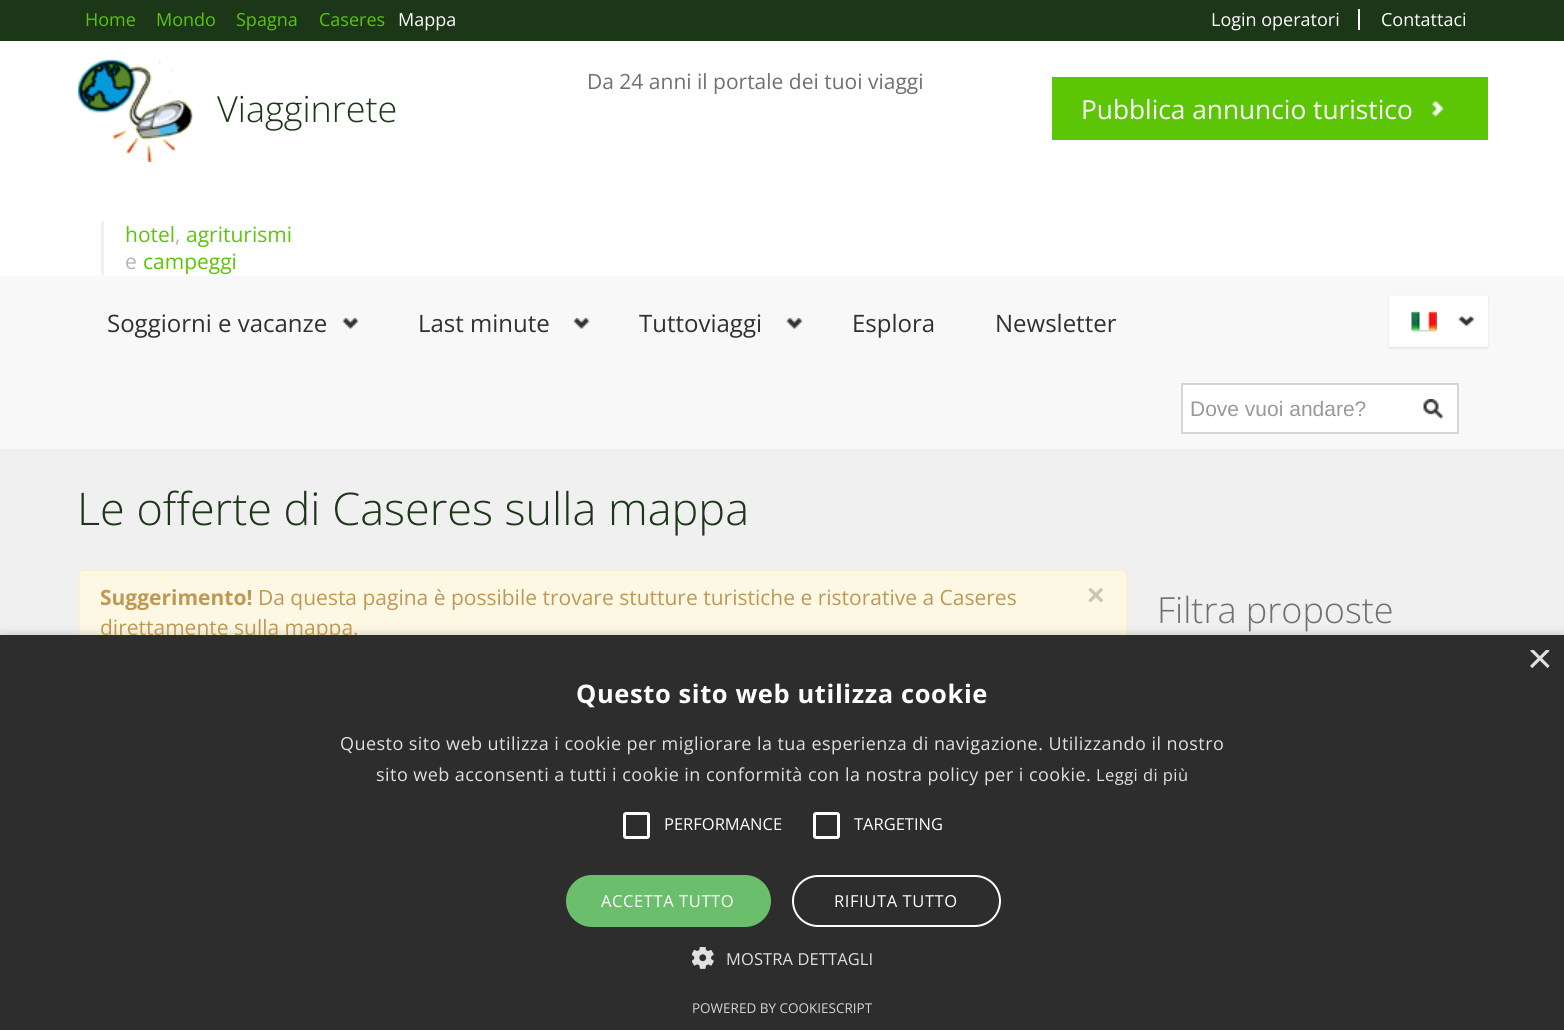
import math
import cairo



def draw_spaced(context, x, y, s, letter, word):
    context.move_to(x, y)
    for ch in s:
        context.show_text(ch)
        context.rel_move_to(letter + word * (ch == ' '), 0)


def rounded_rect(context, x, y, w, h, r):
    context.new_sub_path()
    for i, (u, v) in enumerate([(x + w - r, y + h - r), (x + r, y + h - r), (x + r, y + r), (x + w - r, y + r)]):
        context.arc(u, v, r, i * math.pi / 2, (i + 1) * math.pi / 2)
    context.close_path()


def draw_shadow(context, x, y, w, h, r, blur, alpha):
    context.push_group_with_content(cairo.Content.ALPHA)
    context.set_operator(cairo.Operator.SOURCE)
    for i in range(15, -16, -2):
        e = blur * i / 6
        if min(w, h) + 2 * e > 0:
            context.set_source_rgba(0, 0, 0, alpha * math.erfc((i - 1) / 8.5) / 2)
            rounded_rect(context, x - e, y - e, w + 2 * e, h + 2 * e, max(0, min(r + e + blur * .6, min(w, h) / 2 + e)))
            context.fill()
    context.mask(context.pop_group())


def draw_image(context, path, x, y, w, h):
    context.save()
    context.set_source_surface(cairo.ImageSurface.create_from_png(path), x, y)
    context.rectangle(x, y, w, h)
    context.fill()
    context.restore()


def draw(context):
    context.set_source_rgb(240 / 255, 240 / 255, 240 / 255)
    context.paint()
    context.set_source_rgb(28 / 255, 55 / 255, 23 / 255)
    context.rectangle(0, 0, 1564, 41)
    context.fill()
    context.set_source_rgb(1, 1, 1)
    context.rectangle(1358, 9, 2, 21)
    context.fill()
    context.rectangle(0, 41, 1564, 235)
    context.fill()
    draw_image(context, "images/1.png", 78, 59, 115, 103)
    context.set_source_rgb(240 / 255, 240 / 255, 240 / 255)
    context.rectangle(101, 221, 3, 54)
    context.fill()
    context.set_source_rgb(91 / 255, 197 / 255, 6 / 255)
    context.rectangle(1052, 77, 436, 63)
    context.fill()
    draw_image(context, "images/2.png", 1432, 100, 12, 17)
    context.set_source_rgb(248 / 255, 248 / 255, 248 / 255)
    context.rectangle(0, 276, 1564, 173)
    context.fill()
    draw_image(context, "images/3.png", 342, 318, 17, 11)
    draw_image(context, "images/3.png", 573, 318, 17, 11)
    draw_image(context, "images/4.png", 786, 318, 17, 11)
    context.set_source_rgb(0, 0, 0)
    draw_shadow(context, 1389, 297, 99, 51, 0, 1, 0.1)
    context.set_source_rgb(1, 1, 1)
    context.rectangle(1389, 296, 99, 51)
    context.fill()
    draw_image(context, "images/5.png", 1458, 316, 17, 10)
    draw_image(context, "images/6.png", 1411, 311, 26, 21)
    context.rectangle(1183, 385, 274, 47)
    context.fill()
    draw_image(context, "images/7.png", 1423, 399, 20, 20)
    context.set_source_rgb(213 / 255, 213 / 255, 213 / 255)
    context.rectangle(1181, 383, 277, 2)
    context.fill()
    context.rectangle(1457, 383, 2, 51)
    context.fill()
    context.rectangle(1181, 432, 277, 2)
    context.fill()
    context.rectangle(1181, 383, 2, 51)
    context.fill()
    context.set_source_rgb(252 / 255, 248 / 255, 227 / 255)
    rounded_rect(context, 79, 570, 1048, 85, 5)
    context.fill_preserve()
    context.set_source_rgb(251 / 255, 238 / 255, 213 / 255)
    context.stroke()
    context.set_source_rgb(0, 0, 0)
    draw_shadow(context, 2, 638, 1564, 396, 0, 6, 0.35)
    context.select_font_face("Open Sans")
    context.set_font_size(18)
    context.set_source_rgb(91 / 255, 197 / 255, 6 / 255)
    context.move_to(85, 26)
    context.show_text("Home")
    context.move_to(156, 26)
    context.show_text("Mondo")
    context.move_to(236, 26)
    context.show_text("Spagna")
    context.move_to(319, 26)
    context.show_text("Caseres")
    context.set_source_rgb(1, 1, 1)
    context.move_to(398, 26)
    context.show_text("Mappa")
    context.move_to(1211, 26)
    context.show_text("Login operatori")
    context.move_to(1381, 26)
    context.show_text("Contattaci")
    context.set_font_size(21)
    context.set_source_rgb(112 / 255, 112 / 255, 112 / 255)
    context.move_to(587, 89)
    context.show_text("Da 24 anni il portale dei tuoi viaggi")
    context.select_font_face("Open Sans Light")
    context.set_font_size(36)
    context.set_source_rgb(28 / 255, 55 / 255, 23 / 255)
    context.move_to(217, 122)
    context.show_text("Viagginrete")
    context.select_font_face("Open Sans")
    context.set_font_size(21)
    context.set_source_rgb(91 / 255, 197 / 255, 6 / 255)
    context.move_to(125, 242)
    context.show_text("hotel")
    context.set_source_rgb(181 / 255, 181 / 255, 181 / 255)
    context.move_to(175, 242)
    context.show_text(",")
    context.set_source_rgb(91 / 255, 197 / 255, 6 / 255)
    context.move_to(186, 242)
    context.show_text("agriturismi")
    context.set_source_rgb(181 / 255, 181 / 255, 181 / 255)
    context.move_to(125, 269)
    context.show_text("e")
    context.set_source_rgb(91 / 255, 197 / 255, 6 / 255)
    context.move_to(143, 269)
    context.show_text("campeggi")
    context.set_font_size(26.25)
    context.set_source_rgb(1, 1, 1)
    context.move_to(1081, 119)
    context.show_text("Pubblica annuncio turistico")
    context.set_font_size(24)
    context.set_source_rgb(49 / 255, 49 / 255, 49 / 255)
    context.move_to(107, 332)
    context.show_text("Soggiorni e vacanze")
    context.move_to(418, 332)
    context.show_text("Last minute")
    context.move_to(639, 332)
    context.show_text("Tuttoviaggi")
    context.move_to(852, 332)
    context.show_text("Esplora")
    context.move_to(995, 332)
    context.show_text("Newsletter")
    context.select_font_face("Liberation Sans")
    context.set_font_size(21)
    context.set_source_rgb(153 / 255, 153 / 255, 153 / 255)
    context.move_to(1190, 416)
    context.show_text("Dove vuoi andare?")
    context.select_font_face("Open Sans Light")
    context.set_font_size(45)
    context.set_source_rgb(28 / 255, 55 / 255, 23 / 255)
    context.move_to(77, 525)
    context.show_text("Le offerte di Caseres sulla mappa")
    context.select_font_face("Open Sans", cairo.FontSlant.NORMAL, cairo.FontWeight.BOLD)
    context.set_font_size(21)
    context.set_source_rgb(192 / 255, 152 / 255, 83 / 255)
    context.move_to(100, 605)
    context.show_text("Suggerimento!")
    context.select_font_face("Open Sans")
    context.move_to(258, 605)
    context.show_text("Da questa pagina è possibile trovare stutture turistiche e ristorative a Caseres")
    context.select_font_face("Liberation Sans", cairo.FontSlant.NORMAL, cairo.FontWeight.BOLD)
    context.set_font_size(30)
    context.set_source_rgb(202 / 255, 198 / 255, 182 / 255)
    context.move_to(1087, 605)
    context.show_text("×")
    context.select_font_face("Open Sans")
    context.set_font_size(21)
    context.set_source_rgb(192 / 255, 152 / 255, 83 / 255)
    context.move_to(100, 635)
    context.show_text("direttamente sulla mappa.")
    context.select_font_face("Open Sans Light")
    context.set_font_size(36)
    context.set_source_rgb(112 / 255, 112 / 255, 112 / 255)
    context.move_to(1157, 623)
    context.show_text("Filtra proposte")
    context.set_source_rgb(45 / 255, 45 / 255, 45 / 255)
    context.rectangle(0, 635, 1564, 395)
    context.fill()
    context.save()
    context.rectangle(1527, 650, 23, 22)
    context.clip()
    context.select_font_face("Liberation Sans")
    context.set_font_size(44)
    context.set_source_rgb(224 / 255, 224 / 255, 224 / 255)
    context.move_to(1527, 673)
    context.show_text("×")
    context.restore()
    context.select_font_face("Open Sans", cairo.FontSlant.NORMAL, cairo.FontWeight.BOLD)
    context.set_font_size(25.5)
    context.set_source_rgb(1, 1, 1)
    draw_spaced(context, 576, 703, "Questo sito web utilizza cookie", 0.6, 0)
    context.select_font_face("Open Sans")
    context.set_font_size(18)
    context.set_source_rgb(224 / 255, 224 / 255, 224 / 255)
    draw_spaced(context, 340, 750, "Questo sito web utilizza i cookie per migliorare la tua esperienza di navigazione. Utilizzando il nostro", 0.45, 0)
    draw_spaced(context, 376, 781, "sito web acconsenti a tutti i cookie in conformità con la nostra policy per i cookie.", 0.45, 0)
    context.set_font_size(16.5)
    draw_spaced(context, 1096, 781, "Leggi di più", 0.45, 0)
    rounded_rect(context, 624.5, 813.5, 24, 24, 1.5)
    context.set_source_rgb(1, 1, 1)
    context.set_line_width(3)
    context.stroke()
    context.move_to(664, 830)
    context.show_text("PERFORMANCE")
    rounded_rect(context, 814.5, 813.5, 24, 24, 1.5)
    context.stroke()
    context.move_to(854, 830)
    context.show_text("TARGETING")
    context.set_source_rgb(107 / 255, 190 / 255, 107 / 255)
    rounded_rect(context, 566, 875, 205, 52, 26)
    context.fill()
    context.set_source_rgb(1, 1, 1)
    draw_spaced(context, 601, 907, "ACCETTA TUTTO", 0.6, 0)
    rounded_rect(context, 793, 876, 207, 50, 25)
    context.set_line_width(2)
    context.stroke()
    draw_spaced(context, 834, 907, "RIFIUTA TUTTO", 0.6, 0)
    draw_image(context, "images/8.png", 692, 947, 22, 22)
    context.set_source_rgb(224 / 255, 224 / 255, 224 / 255)
    draw_spaced(context, 726, 965, "MOSTRA DETTAGLI", 0.1, 0)
    context.set_font_size(13.5)
    context.set_source_rgb(213 / 255, 213 / 255, 213 / 255)
    context.move_to(692, 1013)
    context.show_text("POWERED BY COOKIESCRIPT")


surface = cairo.ImageSurface(cairo.Format.RGB24, 1564, 1030)
context = cairo.Context(surface)
options = cairo.FontOptions()
options.set_hint_metrics(cairo.HintMetrics.OFF)
options.set_hint_style(cairo.HintStyle.NONE)
context.set_font_options(options)
context.set_miter_limit(4)
draw(context)
surface.write_to_png("out.png")
